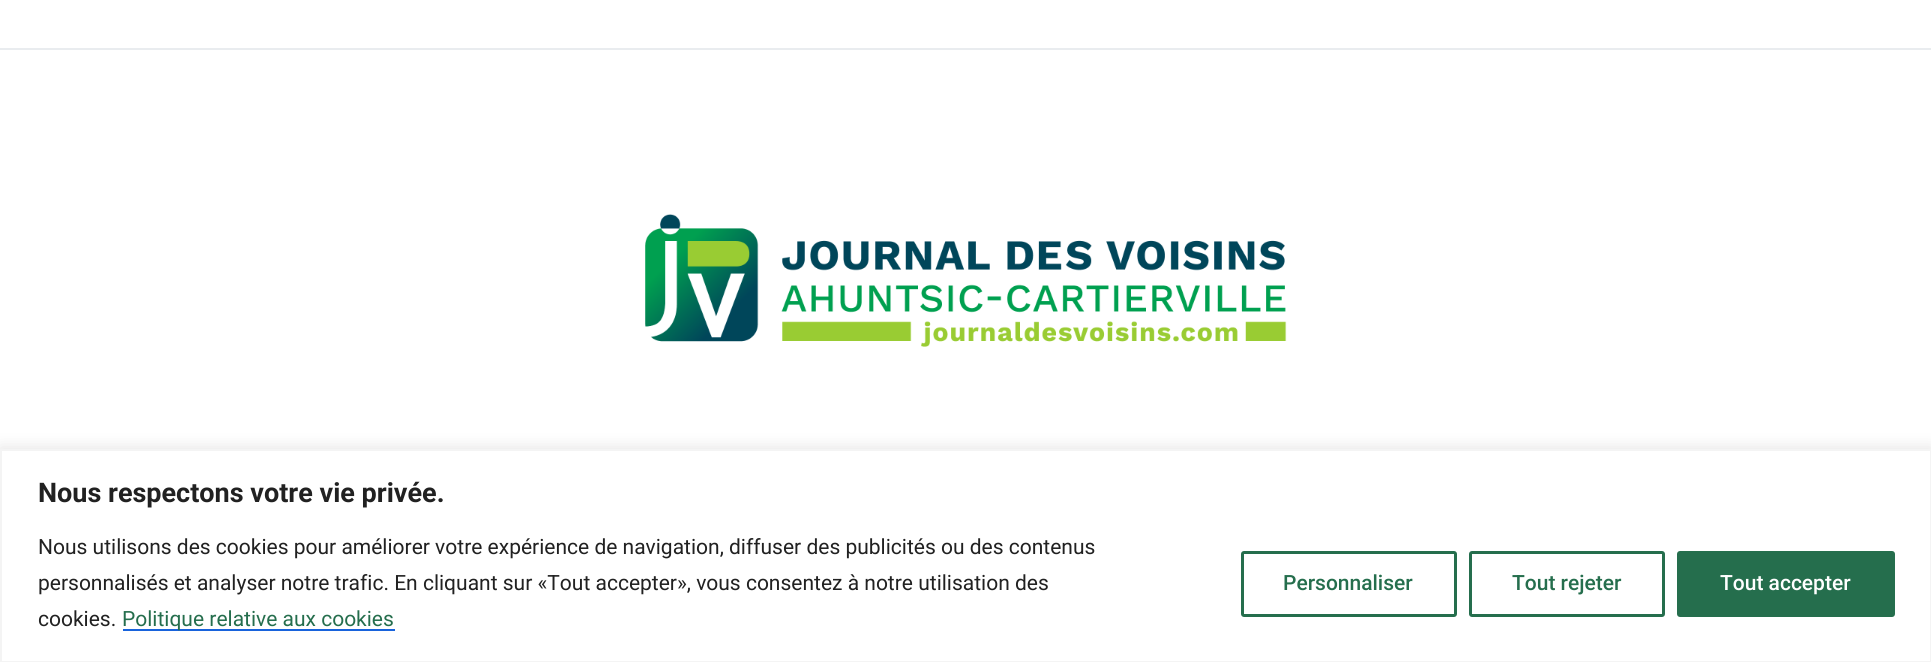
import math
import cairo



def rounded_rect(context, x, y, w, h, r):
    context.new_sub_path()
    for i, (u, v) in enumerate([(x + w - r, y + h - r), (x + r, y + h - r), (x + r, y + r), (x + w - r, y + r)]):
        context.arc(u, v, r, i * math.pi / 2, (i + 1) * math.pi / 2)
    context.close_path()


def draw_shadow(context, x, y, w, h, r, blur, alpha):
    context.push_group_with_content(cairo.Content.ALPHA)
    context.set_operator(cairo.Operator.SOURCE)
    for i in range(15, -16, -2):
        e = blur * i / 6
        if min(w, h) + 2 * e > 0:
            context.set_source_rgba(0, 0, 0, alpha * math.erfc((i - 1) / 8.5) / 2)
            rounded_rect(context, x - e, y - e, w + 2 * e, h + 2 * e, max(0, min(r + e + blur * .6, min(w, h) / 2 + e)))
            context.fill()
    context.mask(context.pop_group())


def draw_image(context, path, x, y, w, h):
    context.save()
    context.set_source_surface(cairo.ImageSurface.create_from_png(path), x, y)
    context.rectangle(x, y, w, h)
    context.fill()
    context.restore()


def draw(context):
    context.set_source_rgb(1, 1, 1)
    context.paint()
    context.set_source_rgb(233 / 255, 236 / 255, 239 / 255)
    context.rectangle(0, 48, 1931, 2)
    context.fill()
    draw_image(context, "images/1.png", 645, 214, 642, 133)
    context.set_source_rgb(172 / 255, 171 / 255, 171 / 255)
    draw_shadow(context, 0, 447, 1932, 215, 0, 7.5, 0.3)
    context.set_source_rgb(1, 1, 1)
    context.rectangle(1, 450, 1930, 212)
    context.fill_preserve()
    context.set_source_rgb(244 / 255, 244 / 255, 244 / 255)
    context.stroke()
    context.set_source_rgb(24 / 255, 99 / 255, 220 / 255)
    context.rectangle(123, 629, 272, 2)
    context.fill()
    rounded_rect(context, 1242.5, 552.5, 213, 63, 1.5)
    context.set_source_rgb(37 / 255, 110 / 255, 77 / 255)
    context.set_line_width(3)
    context.stroke()
    rounded_rect(context, 1470.5, 552.5, 193, 63, 1.5)
    context.stroke()
    rounded_rect(context, 1678.5, 552.5, 215, 63, 1.5)
    context.fill_preserve()
    context.stroke()
    context.select_font_face("Roboto", cairo.FontSlant.NORMAL, cairo.FontWeight.BOLD)
    context.set_font_size(27)
    context.set_source_rgb(33 / 255, 33 / 255, 33 / 255)
    context.move_to(38, 502)
    context.show_text("Nous respectons votre vie privée.")
    context.select_font_face("Roboto")
    context.set_font_size(21)
    context.move_to(38, 554)
    context.show_text("Nous utilisons des cookies pour améliorer votre expérience de navigation, diffuser des publicités ou des contenus")
    context.move_to(38, 590)
    context.show_text("personnalisés et analyser notre trafic. En cliquant sur «Tout accepter», vous consentez à notre utilisation des")
    context.move_to(38, 626)
    context.show_text("cookies.")
    context.set_source_rgb(37 / 255, 110 / 255, 77 / 255)
    context.move_to(122, 626)
    context.show_text("Politique relative aux cookies")
    context.select_font_face("Roboto Medium")
    context.move_to(1283, 590)
    context.show_text("Personnaliser")
    context.move_to(1512, 590)
    context.show_text("Tout rejeter")
    context.set_source_rgb(1, 1, 1)
    context.move_to(1720, 590)
    context.show_text("Tout accepter")


surface = cairo.ImageSurface(cairo.Format.RGB24, 1931, 662)
context = cairo.Context(surface)
options = cairo.FontOptions()
options.set_hint_metrics(cairo.HintMetrics.OFF)
options.set_hint_style(cairo.HintStyle.NONE)
context.set_font_options(options)
context.set_miter_limit(4)
draw(context)
surface.write_to_png("out.png")
